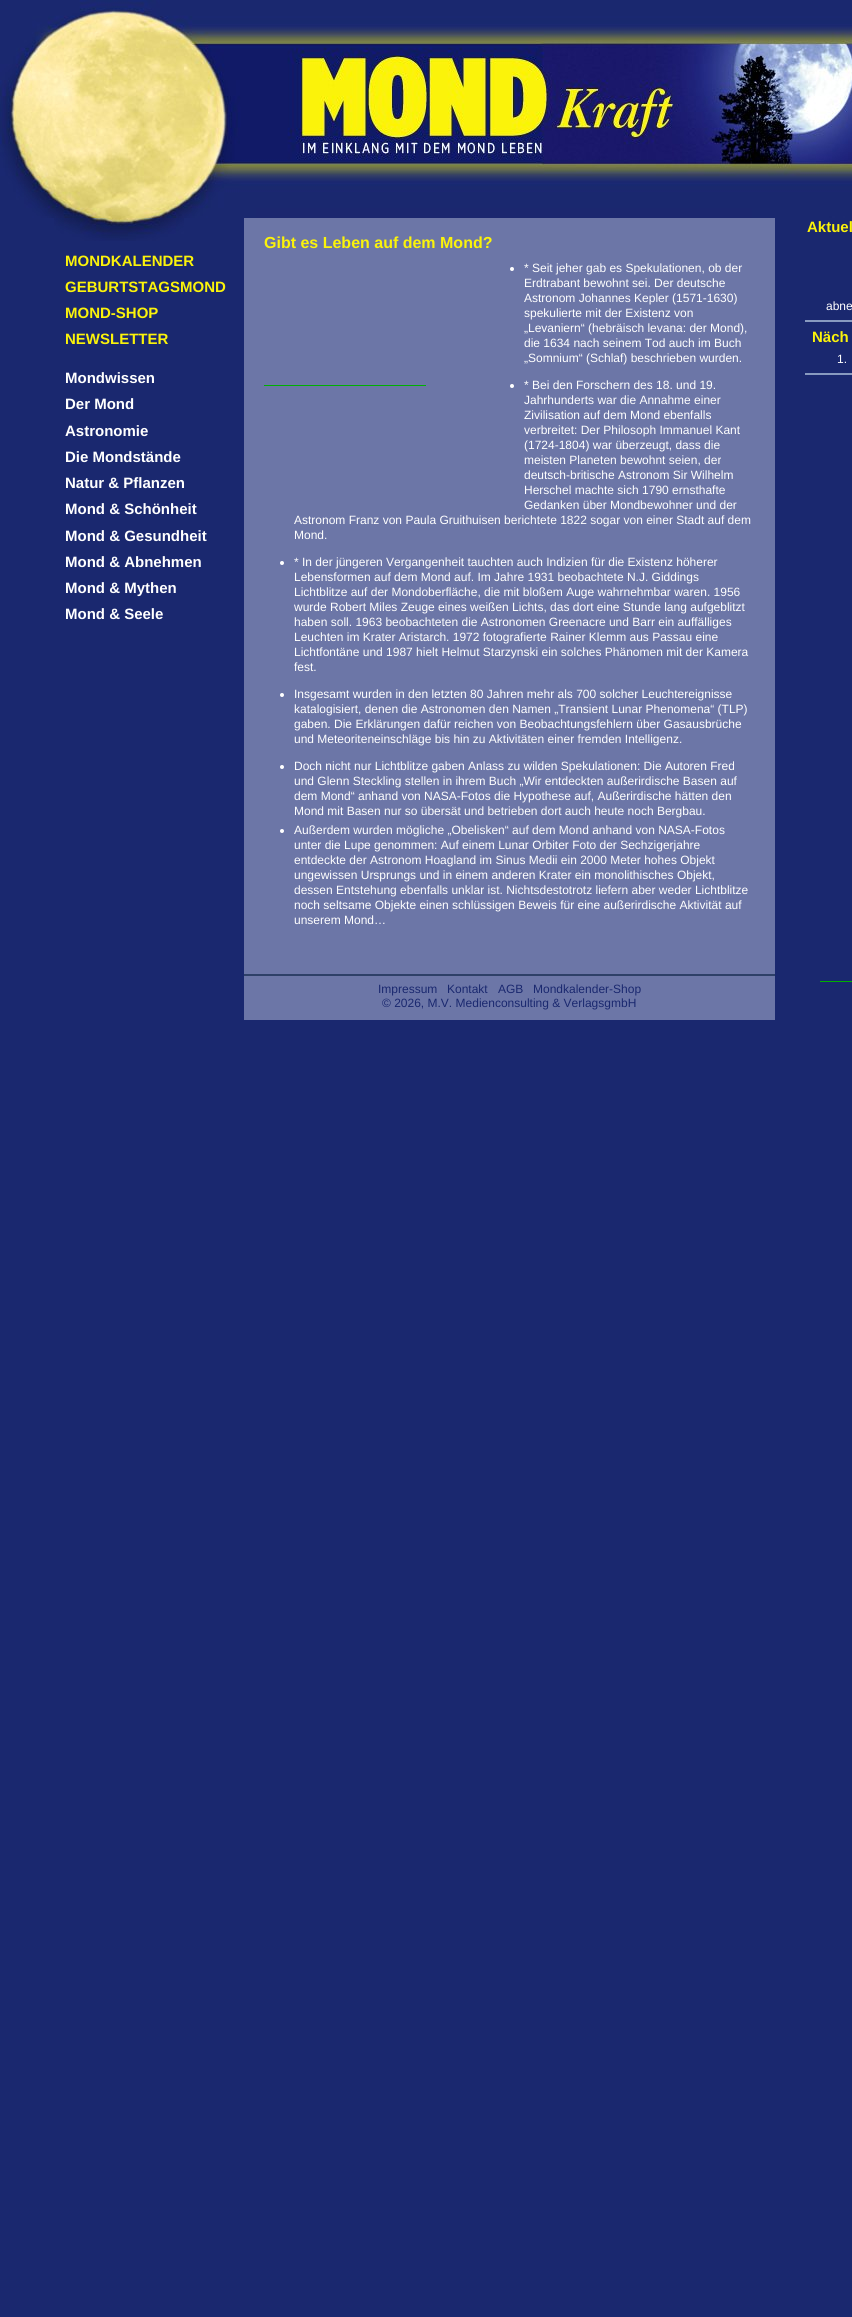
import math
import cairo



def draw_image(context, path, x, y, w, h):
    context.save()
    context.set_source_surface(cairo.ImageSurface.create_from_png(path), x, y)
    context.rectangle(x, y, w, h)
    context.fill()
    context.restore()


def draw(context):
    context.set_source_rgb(26 / 255, 40 / 255, 111 / 255)
    context.paint()
    draw_image(context, "images/1.png", 0, 0, 852, 218)
    context.set_source_rgb(108 / 255, 118 / 255, 167 / 255)
    context.rectangle(244, 218, 531, 802)
    context.fill()
    draw_image(context, "images/2.png", 54, 218, 130, 23)
    context.set_source_rgb(1, 1, 1)
    context.arc(512, 269, 2, 0, 2 * math.pi)
    context.fill()
    context.arc(512, 386, 2, 0, 2 * math.pi)
    context.fill()
    context.arc(282, 563, 2, 0, 2 * math.pi)
    context.fill()
    context.arc(282, 695, 2, 0, 2 * math.pi)
    context.fill()
    context.arc(282, 767, 2, 0, 2 * math.pi)
    context.fill()
    context.arc(282, 831, 2, 0, 2 * math.pi)
    context.fill()
    context.set_source_rgb(0, 176 / 255, 0)
    context.rectangle(264, 385, 162, 1)
    context.fill()
    context.set_source_rgb(46 / 255, 64 / 255, 104 / 255)
    context.rectangle(244, 974, 531, 2)
    context.fill()
    context.set_source_rgb(136 / 255, 154 / 255, 192 / 255)
    context.rectangle(805, 320, 47, 2)
    context.fill()
    context.rectangle(805, 373, 47, 2)
    context.fill()
    context.set_source_rgb(0, 176 / 255, 0)
    context.rectangle(820, 981, 32, 1)
    context.fill()
    context.select_font_face("Liberation Sans", cairo.FontSlant.NORMAL, cairo.FontWeight.BOLD)
    context.set_font_size(15)
    context.set_source_rgb(251 / 255, 243 / 255, 10 / 255)
    context.move_to(65, 266)
    context.show_text("MONDKALENDER")
    context.move_to(65, 292)
    context.show_text("GEBURTSTAGSMOND")
    context.move_to(65, 318)
    context.show_text("MOND-SHOP")
    context.move_to(65, 344)
    context.show_text("NEWSLETTER")
    context.set_source_rgb(1, 1, 1)
    context.move_to(65, 383)
    context.show_text("Mondwissen")
    context.move_to(65, 409)
    context.show_text("Der Mond")
    context.move_to(65, 436)
    context.show_text("Astronomie")
    context.move_to(65, 462)
    context.show_text("Die Mondstände")
    context.move_to(65, 488)
    context.show_text("Natur & Pflanzen")
    context.move_to(65, 514)
    context.show_text("Mond & Schönheit")
    context.move_to(65, 541)
    context.show_text("Mond & Gesundheit")
    context.move_to(65, 567)
    context.show_text("Mond & Abnehmen")
    context.move_to(65, 593)
    context.show_text("Mond & Mythen")
    context.move_to(65, 619)
    context.show_text("Mond & Seele")
    context.set_font_size(16)
    context.set_source_rgb(251 / 255, 243 / 255, 10 / 255)
    context.move_to(264, 248)
    context.show_text("Gibt es Leben auf dem Mond?")
    context.select_font_face("Liberation Sans")
    context.set_font_size(12)
    context.set_source_rgb(1, 1, 1)
    context.move_to(524, 272)
    context.show_text("* Seit jeher gab es Spekulationen, ob der")
    context.move_to(524, 287)
    context.show_text("Erdtrabant bewohnt sei. Der deutsche")
    context.move_to(524, 302)
    context.show_text("Astronom Johannes Kepler (1571-1630)")
    context.move_to(524, 317)
    context.show_text("spekulierte mit der Existenz von")
    context.move_to(524, 332)
    context.show_text("„Levaniern“ (hebräisch levana: der Mond),")
    context.move_to(524, 347)
    context.show_text("die 1634 nach seinem Tod auch im Buch")
    context.move_to(524, 362)
    context.show_text("„Somnium“ (Schlaf) beschrieben wurden.")
    context.move_to(524, 389)
    context.show_text("* Bei den Forschern des 18. und 19.")
    context.move_to(524, 404)
    context.show_text("Jahrhunderts war die Annahme einer")
    context.move_to(524, 419)
    context.show_text("Zivilisation auf dem Mond ebenfalls")
    context.move_to(524, 434)
    context.show_text("verbreitet: Der Philosoph Immanuel Kant")
    context.move_to(524, 449)
    context.show_text("(1724-1804) war überzeugt, dass die")
    context.move_to(524, 464)
    context.show_text("meisten Planeten bewohnt seien, der")
    context.move_to(524, 479)
    context.show_text("deutsch-britische Astronom Sir Wilhelm")
    context.move_to(524, 494)
    context.show_text("Herschel machte sich 1790 ernsthafte")
    context.move_to(524, 509)
    context.show_text("Gedanken über Mondbewohner und der")
    context.move_to(294, 524)
    context.show_text("Astronom Franz von Paula Gruithuisen berichtete 1822 sogar von einer Stadt auf dem")
    context.move_to(294, 539)
    context.show_text("Mond.")
    context.move_to(294, 566)
    context.show_text("* In der jüngeren Vergangenheit tauchten auch Indizien für die Existenz höherer")
    context.move_to(294, 581)
    context.show_text("Lebensformen auf dem Mond auf. Im Jahre 1931 beobachtete N.J. Giddings")
    context.move_to(294, 596)
    context.show_text("Lichtblitze auf der Mondoberfläche, die mit bloßem Auge wahrnehmbar waren. 1956")
    context.move_to(294, 611)
    context.show_text("wurde Robert Miles Zeuge eines weißen Lichts, das dort eine Stunde lang aufgeblitzt")
    context.move_to(294, 626)
    context.show_text("haben soll. 1963 beobachteten die Astronomen Greenacre und Barr ein auffälliges")
    context.move_to(294, 641)
    context.show_text("Leuchten im Krater Aristarch. 1972 fotografierte Rainer Klemm aus Passau eine")
    context.move_to(294, 656)
    context.show_text("Lichtfontäne und 1987 hielt Helmut Starzynski ein solches Phänomen mit der Kamera")
    context.move_to(294, 671)
    context.show_text("fest.")
    context.move_to(294, 698)
    context.show_text("Insgesamt wurden in den letzten 80 Jahren mehr als 700 solcher Leuchtereignisse")
    context.move_to(294, 713)
    context.show_text("katalogisiert, denen die Astronomen den Namen „Transient Lunar Phenomena“ (TLP)")
    context.move_to(294, 728)
    context.show_text("gaben. Die Erklärungen dafür reichen von Beobachtungsfehlern über Gasausbrüche")
    context.move_to(294, 743)
    context.show_text("und Meteoriteneinschläge bis hin zu Aktivitäten einer fremden Intelligenz.")
    context.move_to(294, 770)
    context.show_text("Doch nicht nur Lichtblitze gaben Anlass zu wilden Spekulationen: Die Autoren Fred")
    context.move_to(294, 785)
    context.show_text("und Glenn Steckling stellen in ihrem Buch „Wir entdeckten außerirdische Basen auf")
    context.move_to(294, 800)
    context.show_text("dem Mond“ anhand von NASA-Fotos die Hypothese auf, Außerirdische hätten den")
    context.move_to(294, 815)
    context.show_text("Mond mit Basen nur so übersät und betrieben dort auch heute noch Bergbau.")
    context.move_to(294, 834)
    context.show_text("Außerdem wurden mögliche „Obelisken“ auf dem Mond anhand von NASA-Fotos")
    context.move_to(294, 849)
    context.show_text("unter die Lupe genommen: Auf einem Lunar Orbiter Foto der Sechzigerjahre")
    context.move_to(294, 864)
    context.show_text("entdeckte der Astronom Hoagland im Sinus Medii ein 2000 Meter hohes Objekt")
    context.move_to(294, 879)
    context.show_text("ungewissen Ursprungs und in einem anderen Krater ein monolithisches Objekt,")
    context.move_to(294, 894)
    context.show_text("dessen Entstehung ebenfalls unklar ist. Nichtsdestotrotz liefern aber weder Lichtblitze")
    context.move_to(294, 909)
    context.show_text("noch seltsame Objekte einen schlüssigen Beweis für eine außerirdische Aktivität auf")
    context.move_to(294, 924)
    context.show_text("unserem Mond…")
    context.set_source_rgb(26 / 255, 40 / 255, 111 / 255)
    context.move_to(378, 993)
    context.show_text("Impressum")
    context.move_to(447, 993)
    context.show_text("Kontakt")
    context.move_to(498, 993)
    context.show_text("AGB")
    context.move_to(533, 993)
    context.show_text("Mondkalender-Shop")
    context.move_to(382, 1007)
    context.show_text("© 2026, M.V. Medienconsulting & VerlagsgmbH")
    context.select_font_face("Liberation Sans", cairo.FontSlant.NORMAL, cairo.FontWeight.BOLD)
    context.set_font_size(15)
    context.set_source_rgb(251 / 255, 243 / 255, 10 / 255)
    context.move_to(807, 232)
    context.show_text("Aktuel")
    context.select_font_face("Liberation Sans")
    context.set_font_size(12)
    context.set_source_rgb(1, 1, 1)
    context.move_to(826, 310)
    context.show_text("abne")
    context.select_font_face("Liberation Sans", cairo.FontSlant.NORMAL, cairo.FontWeight.BOLD)
    context.set_font_size(15)
    context.set_source_rgb(251 / 255, 243 / 255, 10 / 255)
    context.move_to(812, 342)
    context.show_text("Näch")
    context.select_font_face("Liberation Sans")
    context.set_font_size(12)
    context.set_source_rgb(1, 1, 1)
    context.move_to(837, 363)
    context.show_text("1.")


surface = cairo.ImageSurface(cairo.Format.RGB24, 852, 2317)
context = cairo.Context(surface)
options = cairo.FontOptions()
options.set_hint_metrics(cairo.HintMetrics.OFF)
options.set_hint_style(cairo.HintStyle.NONE)
context.set_font_options(options)
context.set_miter_limit(4)
draw(context)
surface.write_to_png("out.png")
